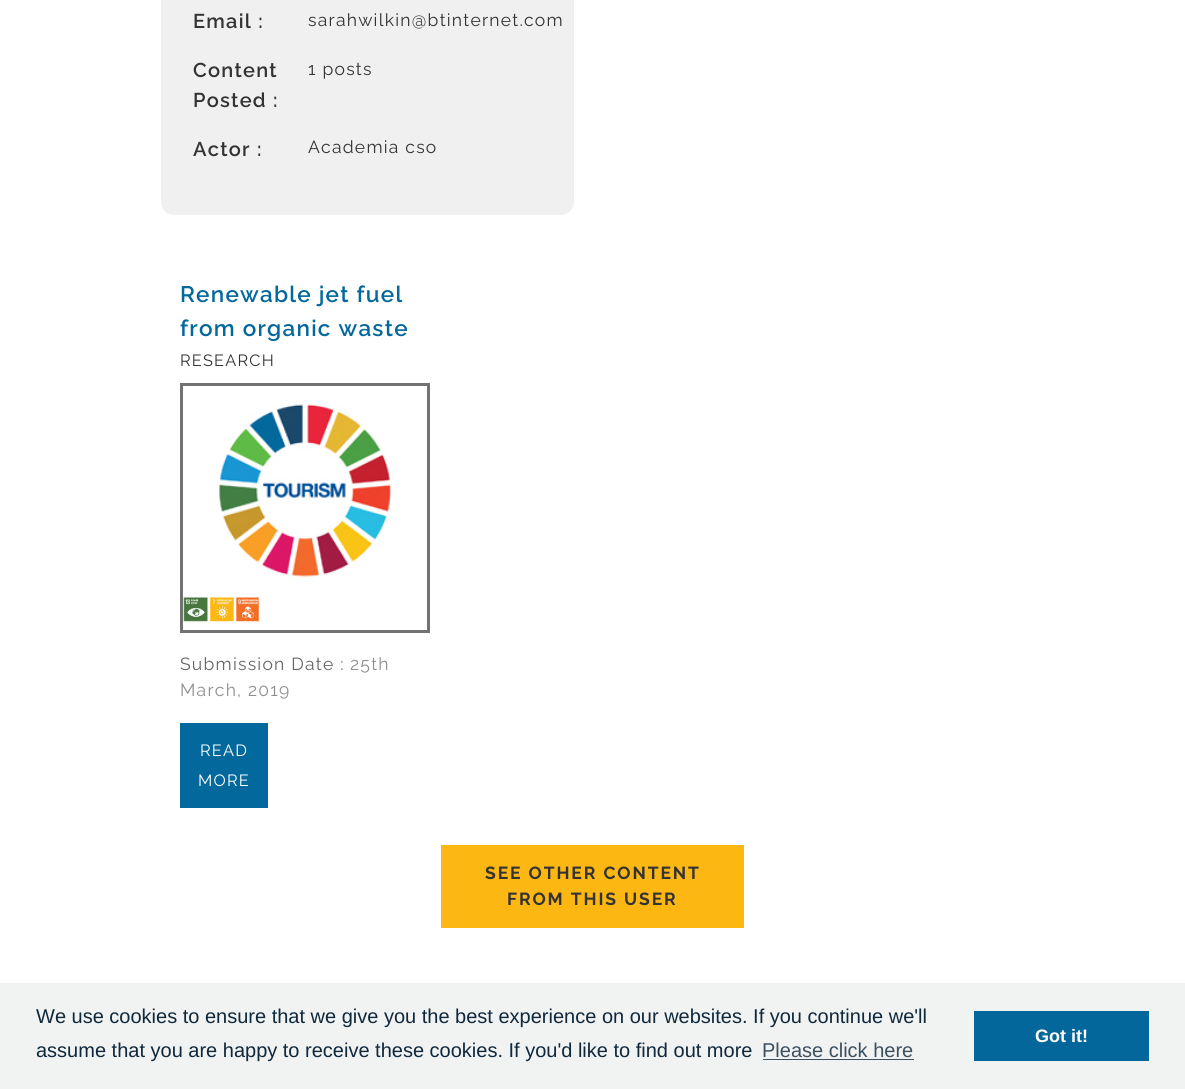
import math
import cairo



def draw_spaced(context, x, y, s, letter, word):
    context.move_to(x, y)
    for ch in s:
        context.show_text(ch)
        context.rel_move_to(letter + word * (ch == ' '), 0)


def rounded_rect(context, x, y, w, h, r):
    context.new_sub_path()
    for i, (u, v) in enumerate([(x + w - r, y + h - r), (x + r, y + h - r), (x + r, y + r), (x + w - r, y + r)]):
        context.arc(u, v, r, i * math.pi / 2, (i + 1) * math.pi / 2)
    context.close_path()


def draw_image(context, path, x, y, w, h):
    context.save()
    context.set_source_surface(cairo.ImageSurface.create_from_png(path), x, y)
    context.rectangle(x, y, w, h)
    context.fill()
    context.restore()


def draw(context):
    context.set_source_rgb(1, 1, 1)
    context.paint()
    context.set_source_rgb(240 / 255, 240 / 255, 240 / 255)
    rounded_rect(context, 161, -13, 413, 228, 13)
    context.fill()
    draw_image(context, "images/1.png", 219, 404, 173, 173)
    context.rectangle(181.5, 384.5, 247, 247)
    context.set_source_rgb(114 / 255, 114 / 255, 114 / 255)
    context.set_line_width(3)
    context.stroke()
    draw_image(context, "images/2.png", 183, 597, 25, 25)
    draw_image(context, "images/3.png", 210, 597, 24, 25)
    draw_image(context, "images/4.png", 236, 597, 23, 25)
    context.set_source_rgb(3 / 255, 104 / 255, 156 / 255)
    context.rectangle(180, 723, 88, 85)
    context.fill()
    context.set_source_rgb(253 / 255, 183 / 255, 19 / 255)
    context.rectangle(441, 845, 303, 83)
    context.fill()
    context.set_source_rgb(241 / 255, 242 / 255, 242 / 255)
    context.rectangle(0, 983, 1185, 106)
    context.fill()
    context.set_source_rgb(60 / 255, 80 / 255, 96 / 255)
    context.rectangle(763, 1059, 151, 1)
    context.fill()
    context.set_source_rgb(3 / 255, 103 / 255, 156 / 255)
    context.rectangle(974, 1011, 175, 50)
    context.fill()
    context.select_font_face("Raleway SemiBold")
    context.set_font_size(20)
    context.set_source_rgb(51 / 255, 51 / 255, 51 / 255)
    draw_spaced(context, 193, 28, "Email :", 1.25, 0)
    context.select_font_face("Raleway")
    context.set_font_size(17.5)
    draw_spaced(context, 308, 26, "sarahwilkin@btinternet.com", 1.25, 0)
    context.select_font_face("Raleway SemiBold")
    context.set_font_size(20)
    draw_spaced(context, 193, 77, "Content", 1.25, 0)
    draw_spaced(context, 193, 107, "Posted :", 1.25, 0)
    context.select_font_face("Raleway")
    context.set_font_size(17.5)
    draw_spaced(context, 308, 75, "1 posts", 1.25, 0)
    context.select_font_face("Raleway SemiBold")
    context.set_font_size(20)
    draw_spaced(context, 193, 156, "Actor :", 1.25, 0)
    context.select_font_face("Raleway")
    context.set_font_size(17.5)
    draw_spaced(context, 308, 153, "Academia cso", 1.25, 0)
    context.select_font_face("Raleway SemiBold")
    context.set_font_size(22.5)
    context.set_source_rgb(3 / 255, 104 / 255, 156 / 255)
    draw_spaced(context, 180, 302, "Renewable jet fuel", 1.25, 0)
    draw_spaced(context, 180, 336, "from organic waste", 1.25, 0)
    context.select_font_face("Raleway")
    context.set_font_size(16.25)
    context.set_source_rgb(51 / 255, 51 / 255, 51 / 255)
    draw_spaced(context, 180, 366, "RESEARCH", 1.25, 0)
    context.set_font_size(17.5)
    context.set_source_rgb(102 / 255, 102 / 255, 102 / 255)
    draw_spaced(context, 180, 670, "Submission Date :", 1.25, 0)
    context.set_source_rgb(143 / 255, 143 / 255, 143 / 255)
    draw_spaced(context, 350, 670, "25th", 1.25, 0)
    draw_spaced(context, 180, 696, "March, 2019", 1.25, 0)
    context.set_font_size(16.25)
    context.set_source_rgb(1, 1, 1)
    draw_spaced(context, 200, 756, "READ", 1.25, 0)
    draw_spaced(context, 198, 786, "MORE", 1.25, 0)
    context.select_font_face("Raleway", cairo.FontSlant.NORMAL, cairo.FontWeight.BOLD)
    context.set_font_size(17.5)
    context.set_source_rgb(51 / 255, 51 / 255, 51 / 255)
    draw_spaced(context, 485, 879, "SEE OTHER CONTENT", 1.9, 0)
    draw_spaced(context, 507, 905, "FROM THIS USER", 1.9, 0)
    context.select_font_face("Liberation Sans")
    context.set_font_size(20)
    context.set_source_rgb(15 / 255, 40 / 255, 60 / 255)
    context.move_to(36, 1023)
    context.show_text("We use cookies to ensure that we give you the best experience on our websites. If you continue we'll")
    context.move_to(36, 1057)
    context.show_text("assume that you are happy to receive these cookies. If you'd like to find out more")
    context.set_source_rgb(60 / 255, 80 / 255, 96 / 255)
    context.move_to(762, 1057)
    context.show_text("Please click here")
    context.select_font_face("Liberation Sans", cairo.FontSlant.NORMAL, cairo.FontWeight.BOLD)
    context.set_font_size(18)
    context.set_source_rgb(1, 1, 1)
    context.move_to(1035, 1042)
    context.show_text("Got it!")


surface = cairo.ImageSurface(cairo.Format.RGB24, 1185, 1089)
context = cairo.Context(surface)
options = cairo.FontOptions()
options.set_hint_metrics(cairo.HintMetrics.OFF)
options.set_hint_style(cairo.HintStyle.NONE)
context.set_font_options(options)
context.set_miter_limit(4)
draw(context)
surface.write_to_png("out.png")
